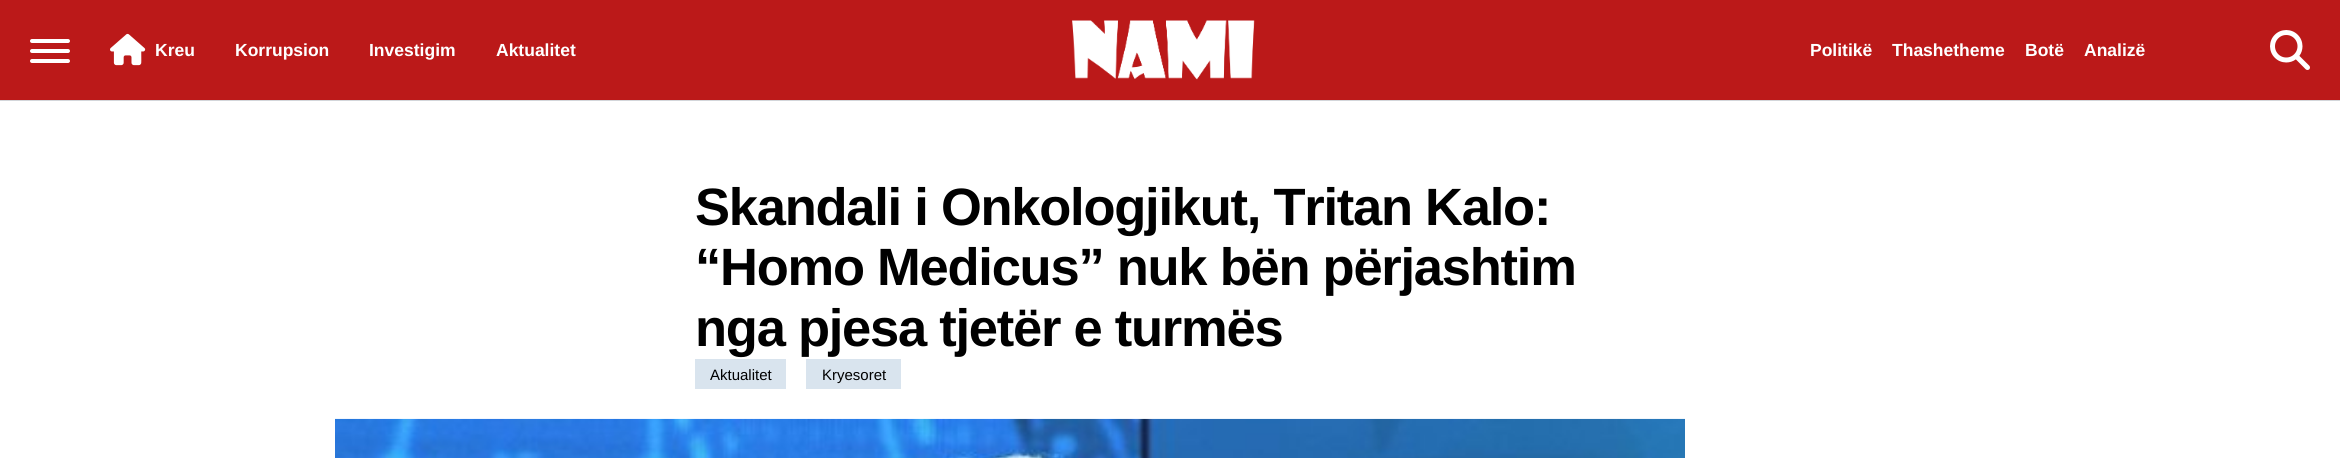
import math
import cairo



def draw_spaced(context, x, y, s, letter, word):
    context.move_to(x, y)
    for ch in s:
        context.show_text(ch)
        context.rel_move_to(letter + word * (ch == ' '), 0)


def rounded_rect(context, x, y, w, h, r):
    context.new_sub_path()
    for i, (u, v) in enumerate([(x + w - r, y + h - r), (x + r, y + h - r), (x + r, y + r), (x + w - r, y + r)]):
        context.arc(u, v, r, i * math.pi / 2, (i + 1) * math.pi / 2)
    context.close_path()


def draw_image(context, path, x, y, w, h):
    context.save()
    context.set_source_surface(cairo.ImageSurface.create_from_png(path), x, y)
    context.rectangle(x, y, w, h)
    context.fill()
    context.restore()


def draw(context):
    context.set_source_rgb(1, 1, 1)
    context.paint()
    context.rectangle(-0.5, -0.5, 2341, 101)
    context.set_source_rgb(211 / 255, 214 / 255, 218 / 255)
    context.set_line_width(1)
    context.stroke()
    context.set_source_rgb(187 / 255, 25 / 255, 25 / 255)
    context.rectangle(0, 0, 2340, 100)
    context.fill()
    context.set_source_rgb(1, 1, 1)
    rounded_rect(context, 30, 49, 40, 4, 2)
    context.fill()
    rounded_rect(context, 30, 39, 40, 4, 2)
    context.fill()
    rounded_rect(context, 30, 59, 40, 4, 2)
    context.fill()
    draw_image(context, "images/1.png", 110, 33, 36, 33)
    draw_image(context, "images/2.png", 1072, 20, 183, 60)
    draw_image(context, "images/3.png", 2270, 30, 40, 40)
    context.set_source_rgb(217 / 255, 228 / 255, 238 / 255)
    context.rectangle(695, 359, 91, 30)
    context.fill()
    context.rectangle(806, 359, 95, 30)
    context.fill()
    draw_image(context, "images/4.png", 335, 418, 1350, 40)
    context.select_font_face("Liberation Sans", cairo.FontSlant.NORMAL, cairo.FontWeight.BOLD)
    context.set_font_size(17.5)
    context.set_source_rgb(1, 1, 1)
    context.move_to(155, 56)
    context.show_text("Kreu")
    context.move_to(235, 56)
    context.show_text("Korrupsion")
    context.move_to(369, 56)
    context.show_text("Investigim")
    context.move_to(496, 56)
    context.show_text("Aktualitet")
    context.move_to(1810, 56)
    context.show_text("Politikë")
    context.move_to(1892, 56)
    context.show_text("Thashetheme")
    context.move_to(2025, 56)
    context.show_text("Botë")
    context.move_to(2084, 56)
    context.show_text("Analizë")
    context.set_font_size(52.5)
    context.set_source_rgb(0, 0, 0)
    draw_spaced(context, 695, 225, "Skandali i Onkologjikut, Tritan Kalo:", -1.25, 0)
    draw_spaced(context, 695, 285, "“Homo Medicus” nuk bën përjashtim", -1.25, 0)
    draw_spaced(context, 695, 346, "nga pjesa tjetër e turmës", -1.25, 0)
    context.select_font_face("Liberation Sans")
    context.set_font_size(15)
    context.move_to(710, 380)
    context.show_text("Aktualitet")
    context.move_to(822, 380)
    context.show_text("Kryesoret")


surface = cairo.ImageSurface(cairo.Format.RGB24, 2340, 458)
context = cairo.Context(surface)
options = cairo.FontOptions()
options.set_hint_metrics(cairo.HintMetrics.OFF)
options.set_hint_style(cairo.HintStyle.NONE)
context.set_font_options(options)
context.set_miter_limit(4)
draw(context)
surface.write_to_png("out.png")
